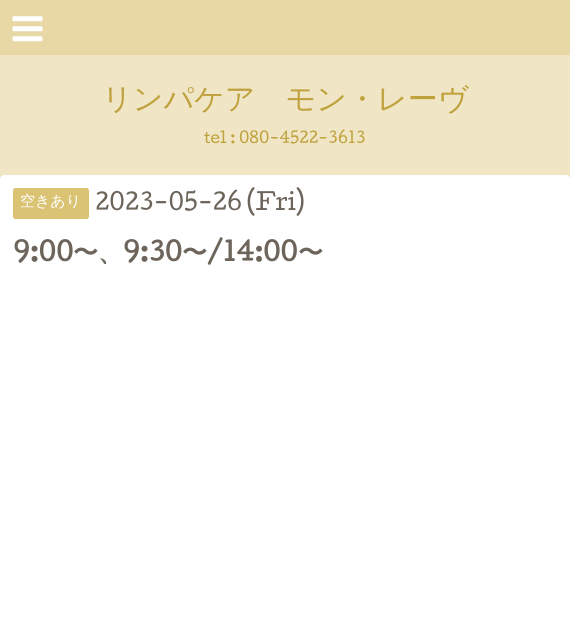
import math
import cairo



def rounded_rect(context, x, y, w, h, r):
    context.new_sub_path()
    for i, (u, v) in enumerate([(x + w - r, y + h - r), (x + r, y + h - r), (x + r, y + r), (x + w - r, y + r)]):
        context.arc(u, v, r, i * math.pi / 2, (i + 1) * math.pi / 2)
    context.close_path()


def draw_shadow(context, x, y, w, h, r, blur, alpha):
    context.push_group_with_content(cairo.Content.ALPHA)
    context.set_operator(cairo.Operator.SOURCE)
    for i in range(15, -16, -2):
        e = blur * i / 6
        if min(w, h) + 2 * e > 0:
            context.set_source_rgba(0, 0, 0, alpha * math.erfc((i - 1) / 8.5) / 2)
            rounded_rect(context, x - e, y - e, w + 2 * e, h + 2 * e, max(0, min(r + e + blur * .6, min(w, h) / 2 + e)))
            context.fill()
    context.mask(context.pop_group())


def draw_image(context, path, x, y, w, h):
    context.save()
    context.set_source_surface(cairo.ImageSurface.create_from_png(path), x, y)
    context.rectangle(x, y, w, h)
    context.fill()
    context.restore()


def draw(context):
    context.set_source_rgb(240 / 255, 230 / 255, 197 / 255)
    context.paint()
    context.set_source_rgb(232 / 255, 216 / 255, 165 / 255)
    context.rectangle(0, 0, 570, 55)
    context.fill()
    draw_image(context, "images/1.png", 12, 16, 31, 26)
    context.set_source_rgb(232 / 255, 216 / 255, 165 / 255)
    draw_shadow(context, 0, 179, 570, 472, 4, 6, 0.4)
    context.set_source_rgb(1, 1, 1)
    context.new_path()
    context.move_to(4, 175)
    context.line_to(566, 175)
    context.curve_to(568, 175, 570, 177, 570, 179)
    context.line_to(570, 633)
    context.line_to(0, 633)
    context.line_to(0, 179)
    context.curve_to(0, 177, 2, 175, 4, 175)
    context.close_path()
    context.fill()
    context.set_source_rgb(219 / 255, 195 / 255, 116 / 255)
    rounded_rect(context, 13, 188, 76, 31, 2.5)
    context.fill()
    context.select_font_face("WenQuanYi Zen Hei Medium")
    context.set_font_size(30)
    context.set_source_rgb(191 / 255, 161 / 255, 61 / 255)
    context.move_to(102, 109)
    context.show_text("リンパケア　モン・レーヴ")
    context.select_font_face("Cutive")
    context.set_font_size(15)
    context.move_to(204, 143)
    context.show_text("tel : 080-4522-3613")
    context.select_font_face("WenQuanYi Zen Hei Medium")
    context.set_source_rgb(1, 1, 1)
    context.move_to(20, 206)
    context.show_text("空きあり")
    context.select_font_face("Cutive")
    context.set_font_size(22.5)
    context.set_source_rgb(109 / 255, 101 / 255, 91 / 255)
    context.move_to(95, 210)
    context.show_text("2023-05-26 (Fri)")
    context.select_font_face("Cutive", cairo.FontSlant.NORMAL, cairo.FontWeight.BOLD)
    context.set_font_size(25)
    context.move_to(13, 261)
    context.show_text("9:00")
    context.select_font_face("WenQuanYi Zen Hei", cairo.FontSlant.NORMAL, cairo.FontWeight.BOLD)
    context.move_to(73, 261)
    context.show_text("〜、")
    context.select_font_face("Cutive", cairo.FontSlant.NORMAL, cairo.FontWeight.BOLD)
    context.move_to(123, 261)
    context.show_text("9:30")
    context.select_font_face("WenQuanYi Zen Hei", cairo.FontSlant.NORMAL, cairo.FontWeight.BOLD)
    context.move_to(182, 261)
    context.show_text("〜")
    context.select_font_face("Cutive", cairo.FontSlant.NORMAL, cairo.FontWeight.BOLD)
    context.move_to(207, 261)
    context.show_text("/14:00")
    context.select_font_face("WenQuanYi Zen Hei", cairo.FontSlant.NORMAL, cairo.FontWeight.BOLD)
    context.move_to(298, 261)
    context.show_text("〜")


surface = cairo.ImageSurface(cairo.Format.RGB24, 570, 629)
context = cairo.Context(surface)
options = cairo.FontOptions()
options.set_hint_metrics(cairo.HintMetrics.OFF)
options.set_hint_style(cairo.HintStyle.NONE)
context.set_font_options(options)
context.set_miter_limit(4)
draw(context)
surface.write_to_png("out.png")
